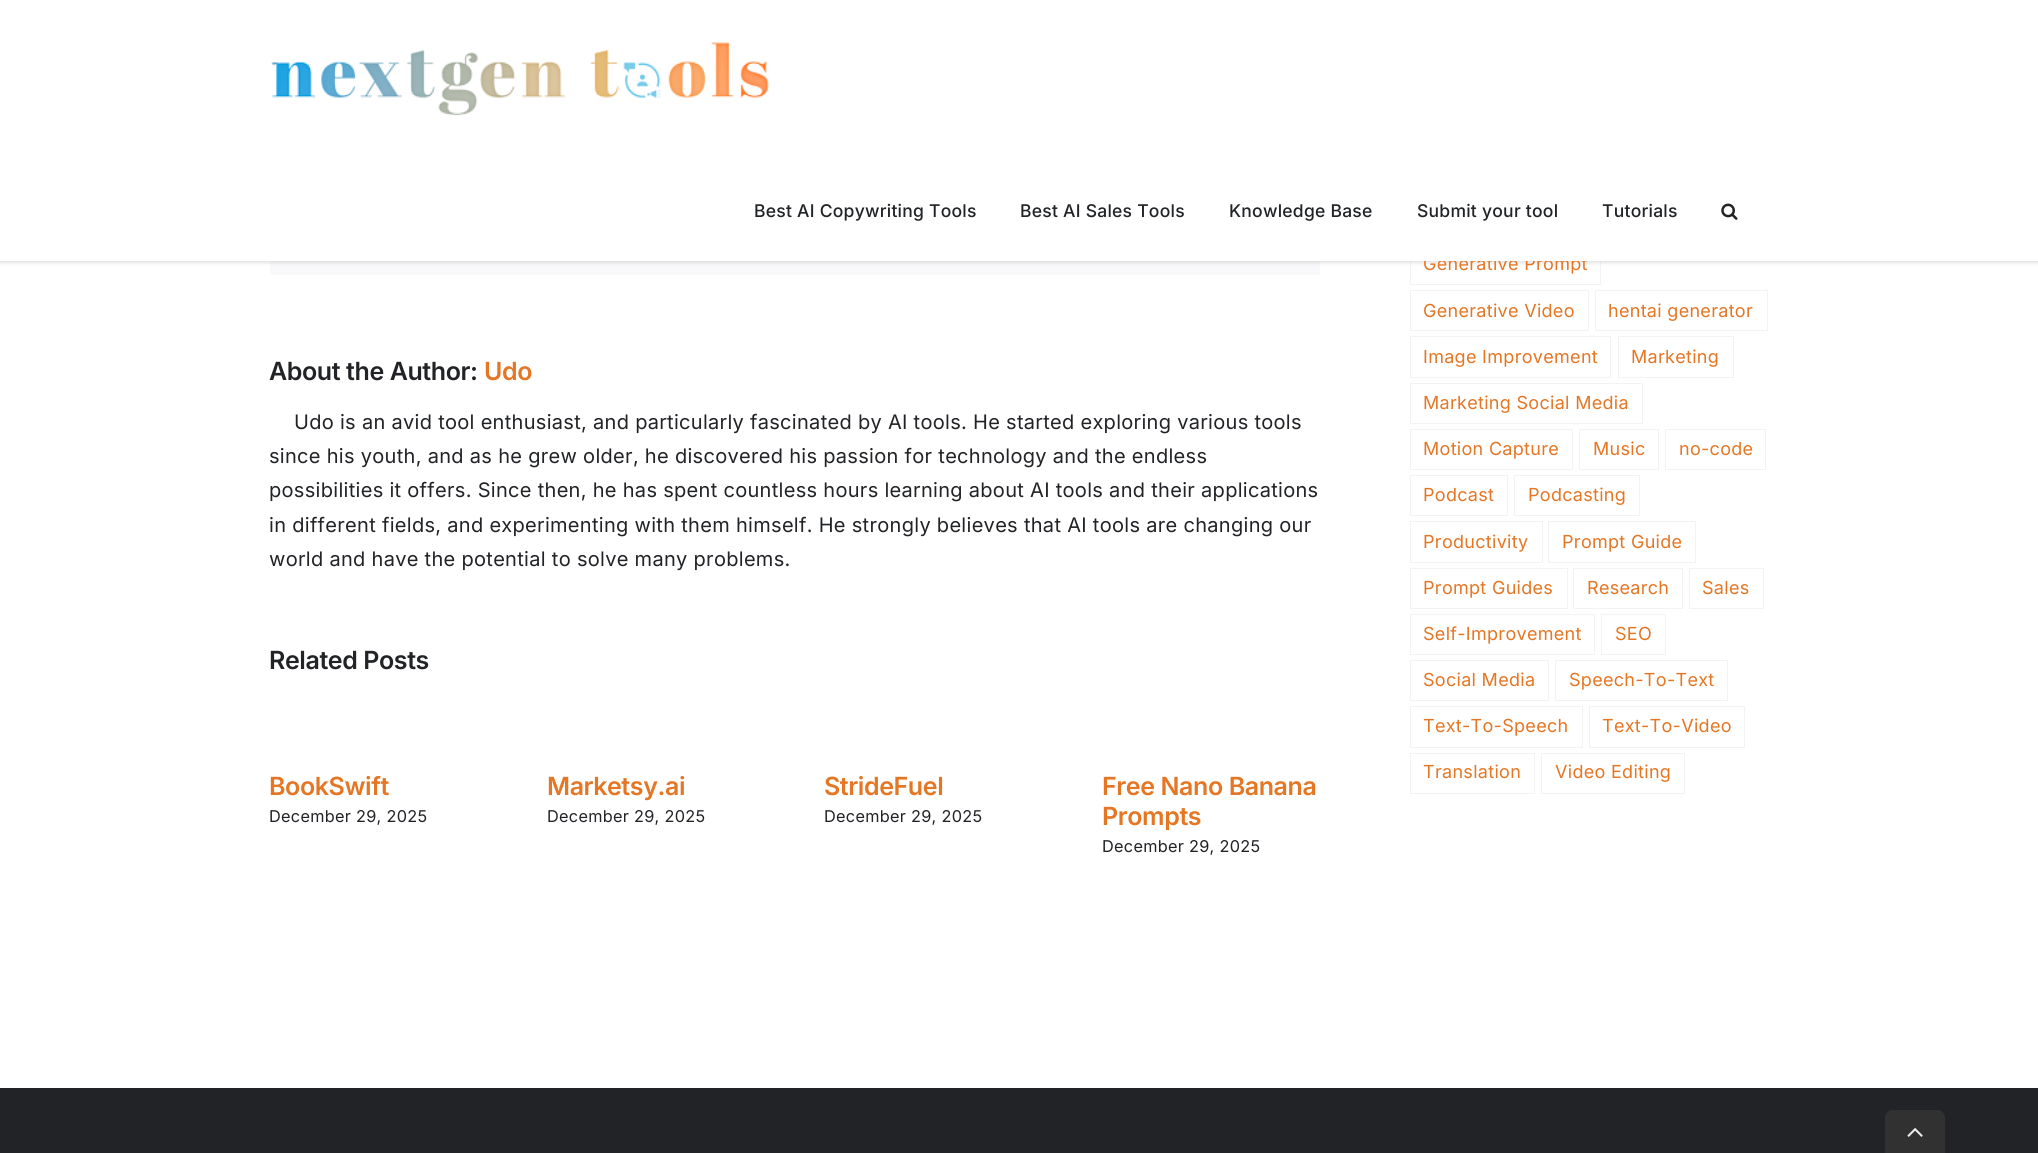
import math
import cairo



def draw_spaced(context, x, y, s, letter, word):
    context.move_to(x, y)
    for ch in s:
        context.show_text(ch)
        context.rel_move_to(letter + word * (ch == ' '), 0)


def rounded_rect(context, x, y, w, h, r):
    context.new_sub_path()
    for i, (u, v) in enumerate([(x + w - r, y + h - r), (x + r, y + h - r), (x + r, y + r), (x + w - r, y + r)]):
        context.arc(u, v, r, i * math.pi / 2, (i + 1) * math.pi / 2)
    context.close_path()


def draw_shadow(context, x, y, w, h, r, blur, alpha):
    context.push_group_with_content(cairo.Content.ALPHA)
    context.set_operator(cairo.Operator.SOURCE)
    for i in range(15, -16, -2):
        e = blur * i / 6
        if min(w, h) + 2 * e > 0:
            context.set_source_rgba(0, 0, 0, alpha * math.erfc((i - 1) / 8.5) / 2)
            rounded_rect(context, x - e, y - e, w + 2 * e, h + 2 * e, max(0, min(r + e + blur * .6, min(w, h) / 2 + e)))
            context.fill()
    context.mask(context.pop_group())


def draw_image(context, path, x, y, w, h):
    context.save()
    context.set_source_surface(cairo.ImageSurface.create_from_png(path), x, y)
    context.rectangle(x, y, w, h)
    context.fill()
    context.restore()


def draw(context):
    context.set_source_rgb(1, 1, 1)
    context.paint()
    context.set_source_rgb(249 / 255, 249 / 255, 251 / 255)
    context.rectangle(270, 261, 1050, 14)
    context.fill()
    context.rectangle(1410.5, 244.5, 190, 40)
    context.set_source_rgb(242 / 255, 243 / 255, 245 / 255)
    context.set_line_width(1)
    context.stroke()
    context.set_source_rgb(0, 0, 0)
    draw_shadow(context, 0, 1, 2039, 262, 0, 2, 0.12)
    context.rectangle(1410.5, 290.5, 178, 40)
    context.set_source_rgb(242 / 255, 243 / 255, 245 / 255)
    context.stroke()
    context.rectangle(1595.5, 290.5, 172, 40)
    context.stroke()
    context.rectangle(1410.5, 336.5, 200, 41)
    context.stroke()
    context.rectangle(1618.5, 336.5, 115, 41)
    context.stroke()
    context.rectangle(1410.5, 383.5, 232, 40)
    context.stroke()
    context.rectangle(1410.5, 429.5, 162, 40)
    context.stroke()
    context.rectangle(1579.5, 429.5, 79, 40)
    context.stroke()
    context.rectangle(1665.5, 429.5, 100, 40)
    context.stroke()
    context.rectangle(1410.5, 475.5, 97, 40)
    context.stroke()
    context.rectangle(1514.5, 475.5, 125, 40)
    context.stroke()
    context.rectangle(1410.5, 521.5, 132, 41)
    context.stroke()
    context.rectangle(1548.5, 521.5, 147, 41)
    context.stroke()
    context.rectangle(1410.5, 568.5, 157, 40)
    context.stroke()
    context.rectangle(1573.5, 568.5, 109, 40)
    context.stroke()
    context.rectangle(1689.5, 568.5, 74, 40)
    context.stroke()
    context.rectangle(1410.5, 614.5, 184, 40)
    context.stroke()
    context.rectangle(1601.5, 614.5, 64, 40)
    context.stroke()
    context.rectangle(1410.5, 660.5, 138, 40)
    context.stroke()
    context.rectangle(1555.5, 660.5, 172, 40)
    context.stroke()
    context.rectangle(1410.5, 706.5, 172, 41)
    context.stroke()
    context.rectangle(1589.5, 706.5, 155, 41)
    context.stroke()
    context.rectangle(1410.5, 753.5, 124, 40)
    context.stroke()
    context.rectangle(1541.5, 753.5, 143, 40)
    context.stroke()
    context.set_source_rgb(33 / 255, 35 / 255, 38 / 255)
    context.rectangle(0, 1088, 2038, 65)
    context.fill()
    context.set_source_rgb(49 / 255, 49 / 255, 50 / 255)
    context.new_path()
    context.move_to(1893, 1110)
    context.line_to(1937, 1110)
    context.curve_to(1941.5, 1110, 1945, 1113.5, 1945, 1118)
    context.line_to(1945, 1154)
    context.line_to(1885, 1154)
    context.line_to(1885, 1118)
    context.curve_to(1885, 1113.5, 1888.5, 1110, 1893, 1110)
    context.close_path()
    context.fill()
    draw_image(context, "images/3.png", 1907, 1128, 16, 9)
    context.select_font_face("Inter SemiBold")
    context.set_font_size(25)
    context.set_source_rgb(33 / 255, 35 / 255, 38 / 255)
    draw_spaced(context, 269, 380, "About the Author:", -0.4, 0)
    context.set_source_rgb(228 / 255, 118 / 255, 36 / 255)
    draw_spaced(context, 484, 380, "Udo", -0.4, 0)
    context.select_font_face("Inter")
    context.set_font_size(20)
    context.set_source_rgb(33 / 255, 35 / 255, 38 / 255)
    draw_spaced(context, 294, 429, "Udo is an avid tool enthusiast, and particularly fascinated by AI tools. He started exploring various tools", 0.3, 0)
    draw_spaced(context, 269, 463, "since his youth, and as he grew older, he discovered his passion for technology and the endless", 0.3, 0)
    draw_spaced(context, 269, 497, "possibilities it offers. Since then, he has spent countless hours learning about AI tools and their applications", 0.3, 0)
    draw_spaced(context, 269, 532, "in different fields, and experimenting with them himself. He strongly believes that AI tools are changing our", 0.3, 0)
    draw_spaced(context, 269, 566, "world and have the potential to solve many problems.", 0.3, 0)
    context.select_font_face("Inter SemiBold")
    context.set_font_size(25)
    draw_spaced(context, 269, 669, "Related Posts", -0.4, 0)
    context.set_source_rgb(228 / 255, 118 / 255, 36 / 255)
    draw_spaced(context, 269, 795, "BookSwift", -0.4, 0)
    context.select_font_face("Inter")
    context.set_font_size(16.25)
    context.set_source_rgb(33 / 255, 35 / 255, 38 / 255)
    draw_spaced(context, 269, 822, "December 29, 2025", 0.3, 0)
    context.select_font_face("Inter SemiBold")
    context.set_font_size(25)
    context.set_source_rgb(228 / 255, 118 / 255, 36 / 255)
    draw_spaced(context, 547, 795, "Marketsy.ai", -0.4, 0)
    context.select_font_face("Inter")
    context.set_font_size(16.25)
    context.set_source_rgb(33 / 255, 35 / 255, 38 / 255)
    draw_spaced(context, 547, 822, "December 29, 2025", 0.3, 0)
    context.select_font_face("Inter SemiBold")
    context.set_font_size(25)
    context.set_source_rgb(228 / 255, 118 / 255, 36 / 255)
    draw_spaced(context, 824, 795, "StrideFuel", -0.4, 0)
    context.select_font_face("Inter")
    context.set_font_size(16.25)
    context.set_source_rgb(33 / 255, 35 / 255, 38 / 255)
    draw_spaced(context, 824, 822, "December 29, 2025", 0.3, 0)
    context.select_font_face("Inter SemiBold")
    context.set_font_size(25)
    context.set_source_rgb(228 / 255, 118 / 255, 36 / 255)
    draw_spaced(context, 1102, 795, "Free Nano Banana", -0.4, 0)
    draw_spaced(context, 1102, 825, "Prompts", -0.4, 0)
    context.select_font_face("Inter")
    context.set_font_size(16.25)
    context.set_source_rgb(33 / 255, 35 / 255, 38 / 255)
    draw_spaced(context, 1102, 852, "December 29, 2025", 0.3, 0)
    context.set_font_size(18)
    context.set_source_rgb(228 / 255, 118 / 255, 36 / 255)
    draw_spaced(context, 1423, 270, "Generative Prompt", 0.3, 0)
    context.set_source_rgb(1, 1, 1)
    context.rectangle(0, 0, 2038, 261)
    context.fill()
    draw_image(context, "images/2.png", 1721, 203, 17, 17)
    context.select_font_face("Inter Medium")
    context.set_font_size(17.5)
    context.set_source_rgb(33 / 255, 35 / 255, 38 / 255)
    draw_spaced(context, 1602, 217, "Tutorials", 0.25, 0)
    draw_spaced(context, 1417, 217, "Submit your tool", 0.25, 0)
    draw_spaced(context, 1229, 217, "Knowledge Base", 0.25, 0)
    draw_spaced(context, 1020, 217, "Best AI Sales Tools", 0.25, 0)
    draw_spaced(context, 754, 217, "Best AI Copywriting Tools", 0.25, 0)
    draw_image(context, "images/1.png", 271, 42, 498, 74)
    context.select_font_face("Inter")
    context.set_font_size(18)
    context.set_source_rgb(228 / 255, 118 / 255, 36 / 255)
    draw_spaced(context, 1423, 317, "Generative Video", 0.3, 0)
    draw_spaced(context, 1608, 317, "hentai generator", 0.3, 0)
    draw_spaced(context, 1423, 363, "Image Improvement", 0.3, 0)
    draw_spaced(context, 1631, 363, "Marketing", 0.3, 0)
    draw_spaced(context, 1423, 409, "Marketing Social Media", 0.3, 0)
    draw_spaced(context, 1423, 455, "Motion Capture", 0.3, 0)
    draw_spaced(context, 1593, 455, "Music", 0.3, 0)
    draw_spaced(context, 1679, 455, "no-code", 0.3, 0)
    draw_spaced(context, 1423, 501, "Podcast", 0.3, 0)
    draw_spaced(context, 1528, 501, "Podcasting", 0.3, 0)
    draw_spaced(context, 1423, 548, "Productivity", 0.3, 0)
    draw_spaced(context, 1562, 548, "Prompt Guide", 0.3, 0)
    draw_spaced(context, 1423, 594, "Prompt Guides", 0.3, 0)
    draw_spaced(context, 1587, 594, "Research", 0.3, 0)
    draw_spaced(context, 1702, 594, "Sales", 0.3, 0)
    draw_spaced(context, 1423, 640, "Self-Improvement", 0.3, 0)
    draw_spaced(context, 1615, 640, "SEO", 0.3, 0)
    draw_spaced(context, 1423, 686, "Social Media", 0.3, 0)
    draw_spaced(context, 1569, 686, "Speech-To-Text", 0.3, 0)
    draw_spaced(context, 1423, 732, "Text-To-Speech", 0.3, 0)
    draw_spaced(context, 1602, 732, "Text-To-Video", 0.3, 0)
    draw_spaced(context, 1423, 778, "Translation", 0.3, 0)
    draw_spaced(context, 1555, 778, "Video Editing", 0.3, 0)


surface = cairo.ImageSurface(cairo.Format.RGB24, 2038, 1153)
context = cairo.Context(surface)
options = cairo.FontOptions()
options.set_hint_metrics(cairo.HintMetrics.OFF)
options.set_hint_style(cairo.HintStyle.NONE)
context.set_font_options(options)
context.set_miter_limit(4)
draw(context)
surface.write_to_png("out.png")
